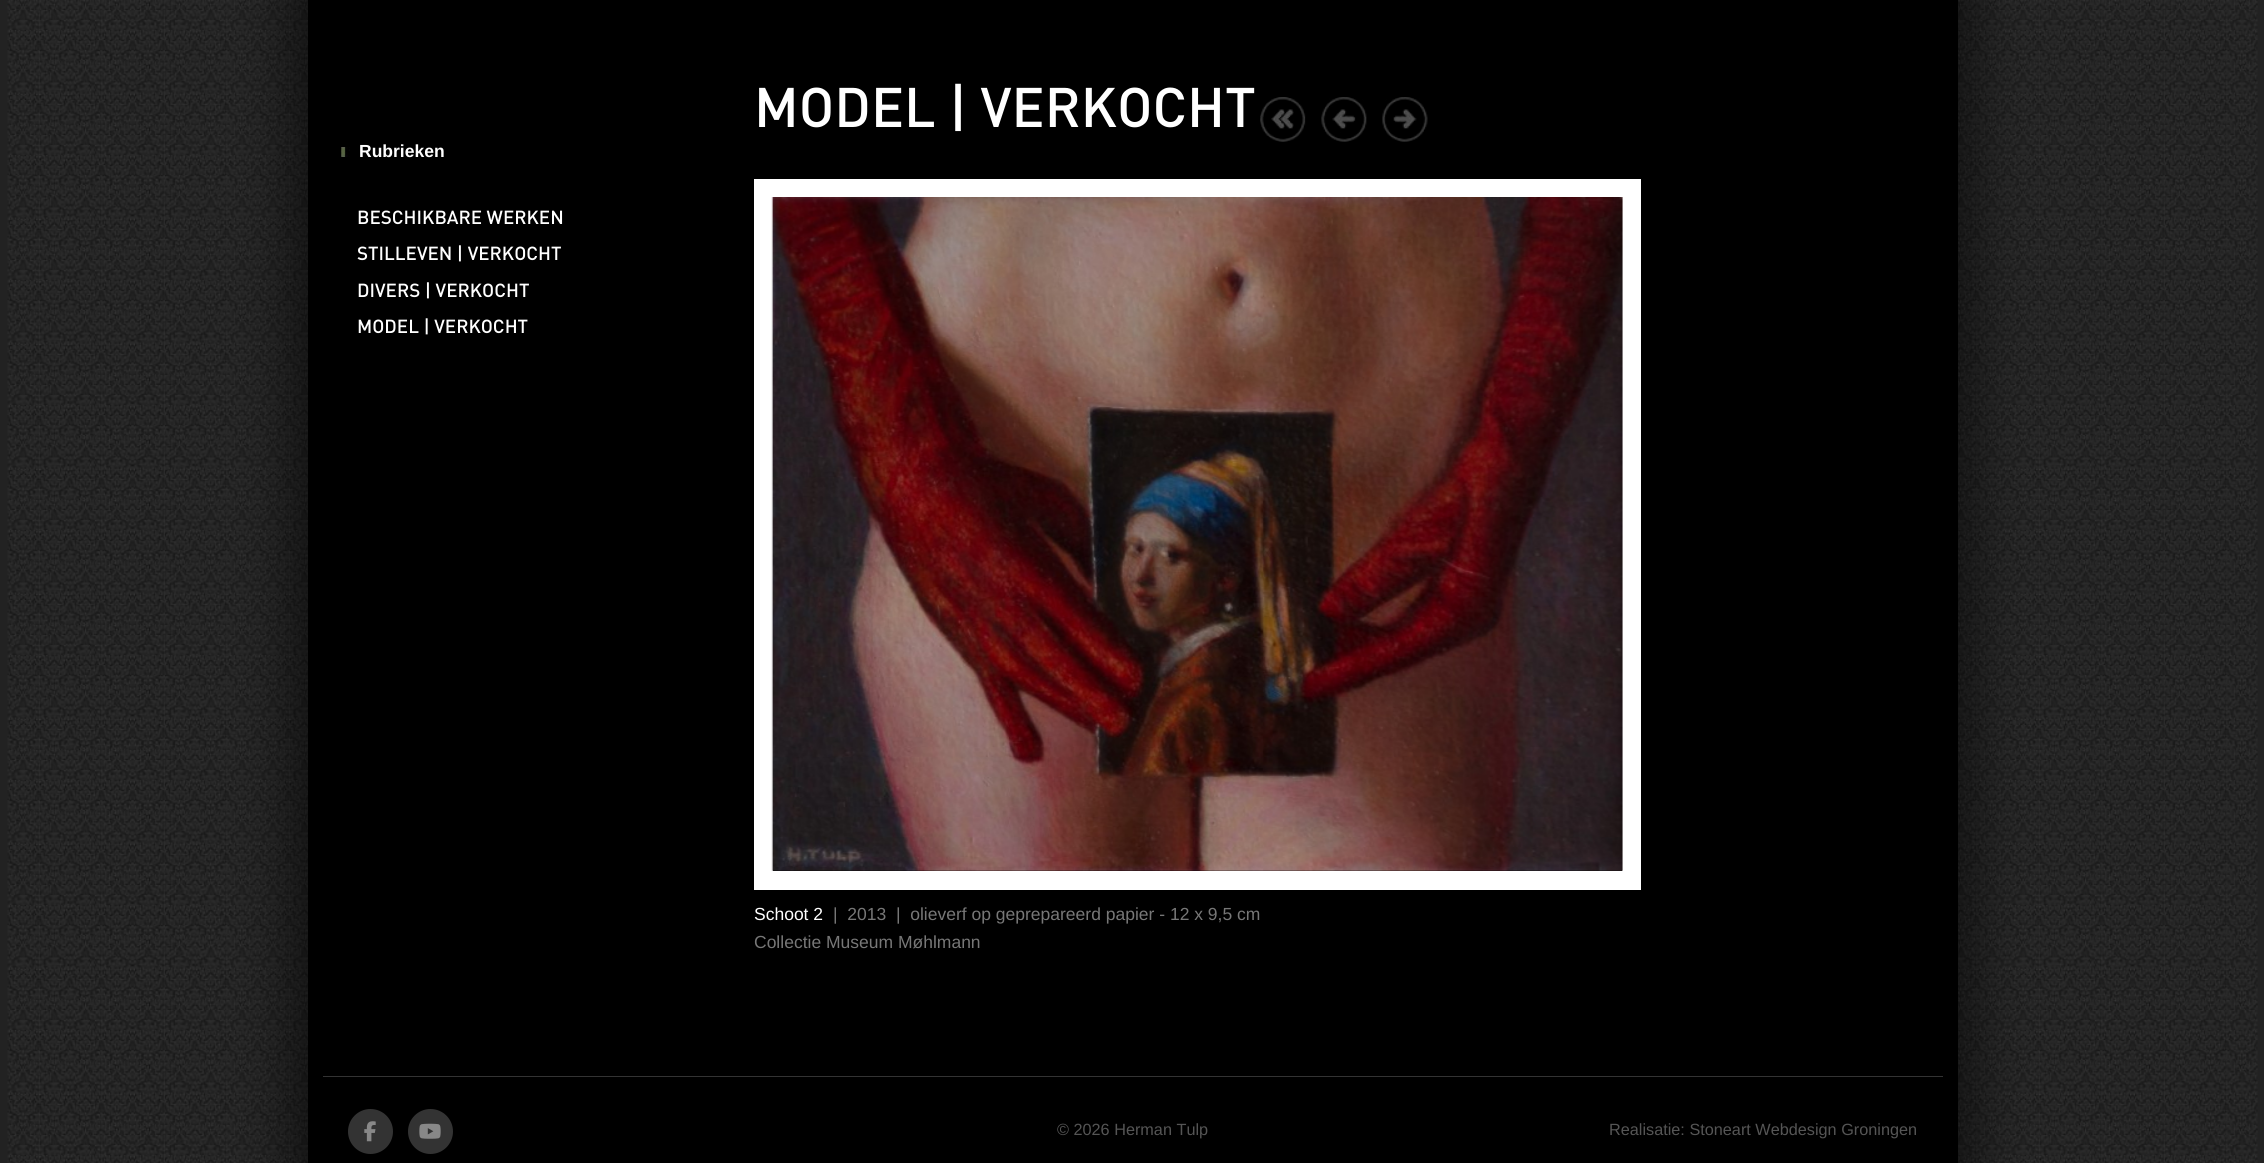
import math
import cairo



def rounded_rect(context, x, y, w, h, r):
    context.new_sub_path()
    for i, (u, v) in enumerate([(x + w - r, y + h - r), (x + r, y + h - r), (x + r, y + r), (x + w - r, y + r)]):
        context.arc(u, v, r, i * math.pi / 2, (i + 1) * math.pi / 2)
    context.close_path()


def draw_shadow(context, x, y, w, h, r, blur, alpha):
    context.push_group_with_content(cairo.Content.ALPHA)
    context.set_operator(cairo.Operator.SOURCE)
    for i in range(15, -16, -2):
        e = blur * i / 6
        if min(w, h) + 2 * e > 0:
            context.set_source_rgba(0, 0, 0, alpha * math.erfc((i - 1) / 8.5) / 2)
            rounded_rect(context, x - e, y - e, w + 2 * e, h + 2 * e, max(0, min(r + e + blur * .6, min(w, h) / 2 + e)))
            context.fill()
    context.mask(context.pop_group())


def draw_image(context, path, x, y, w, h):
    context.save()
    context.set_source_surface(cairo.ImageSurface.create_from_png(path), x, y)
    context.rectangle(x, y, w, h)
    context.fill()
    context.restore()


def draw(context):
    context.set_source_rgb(34 / 255, 34 / 255, 34 / 255)
    context.paint()
    draw_image(context, "images/1.png", 7, 0, 2251, 1163)
    context.set_source_rgb(0, 0, 0)
    draw_shadow(context, 289, -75, 1687, 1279, 0, 25, 0.5)
    context.set_source_rgb(0, 0, 0)
    context.rectangle(308, 0, 1650, 1163)
    context.fill()
    draw_image(context, "images/2.png", 341, 147, 9, 10)
    draw_image(context, "images/3.png", 1260, 97, 46, 45)
    draw_image(context, "images/4.png", 1321, 97, 46, 45)
    draw_image(context, "images/5.png", 1382, 97, 46, 45)
    context.rectangle(763.5, 188.5, 868, 692)
    context.set_source_rgb(1, 1, 1)
    context.set_line_width(19)
    context.stroke()
    draw_image(context, "images/6.png", 771, 197, 852, 674)
    context.set_source_rgb(51 / 255, 51 / 255, 51 / 255)
    context.rectangle(323, 1076, 1620, 1)
    context.fill()
    context.arc(370.5, 1131.5, 22.5, 0, 2 * math.pi)
    context.fill()
    draw_image(context, "images/7.png", 364, 1121, 12, 21)
    context.arc(430.5, 1131.5, 22.5, 0, 2 * math.pi)
    context.fill()
    draw_image(context, "images/8.png", 419, 1123, 22, 16)
    context.select_font_face("Liberation Sans", cairo.FontSlant.NORMAL, cairo.FontWeight.BOLD)
    context.set_font_size(17.5)
    context.set_source_rgb(1, 1, 1)
    context.move_to(359, 157)
    context.show_text("Rubrieken")
    context.select_font_face("DIN Medium")
    context.set_font_size(18.75)
    context.move_to(357, 224)
    context.show_text("BESCHIKBARE WERKEN")
    context.move_to(357, 260)
    context.show_text("STILLEVEN | VERKOCHT")
    context.move_to(357, 297)
    context.show_text("DIVERS | VERKOCHT")
    context.move_to(357, 333)
    context.show_text("MODEL | VERKOCHT")
    context.set_font_size(55)
    context.move_to(754, 127)
    context.show_text("MODEL | VERKOCHT")
    context.select_font_face("Liberation Sans")
    context.set_font_size(17.5)
    context.move_to(754, 920)
    context.show_text("Schoot 2")
    context.set_source_rgb(119 / 255, 119 / 255, 119 / 255)
    context.move_to(833, 920)
    context.show_text("|  2013  |  olieverf op geprepareerd papier - 12 x 9,5 cm")
    context.move_to(754, 948)
    context.show_text("Collectie Museum Møhlmann")
    context.set_font_size(16.25)
    context.set_source_rgb(85 / 255, 85 / 255, 85 / 255)
    context.move_to(1057, 1135)
    context.show_text("© 2026 Herman Tulp")
    context.move_to(1609, 1135)
    context.show_text("Realisatie: Stoneart Webdesign Groningen")


surface = cairo.ImageSurface(cairo.Format.RGB24, 2264, 1163)
context = cairo.Context(surface)
options = cairo.FontOptions()
options.set_hint_metrics(cairo.HintMetrics.OFF)
options.set_hint_style(cairo.HintStyle.NONE)
context.set_font_options(options)
context.set_miter_limit(4)
draw(context)
surface.write_to_png("out.png")
